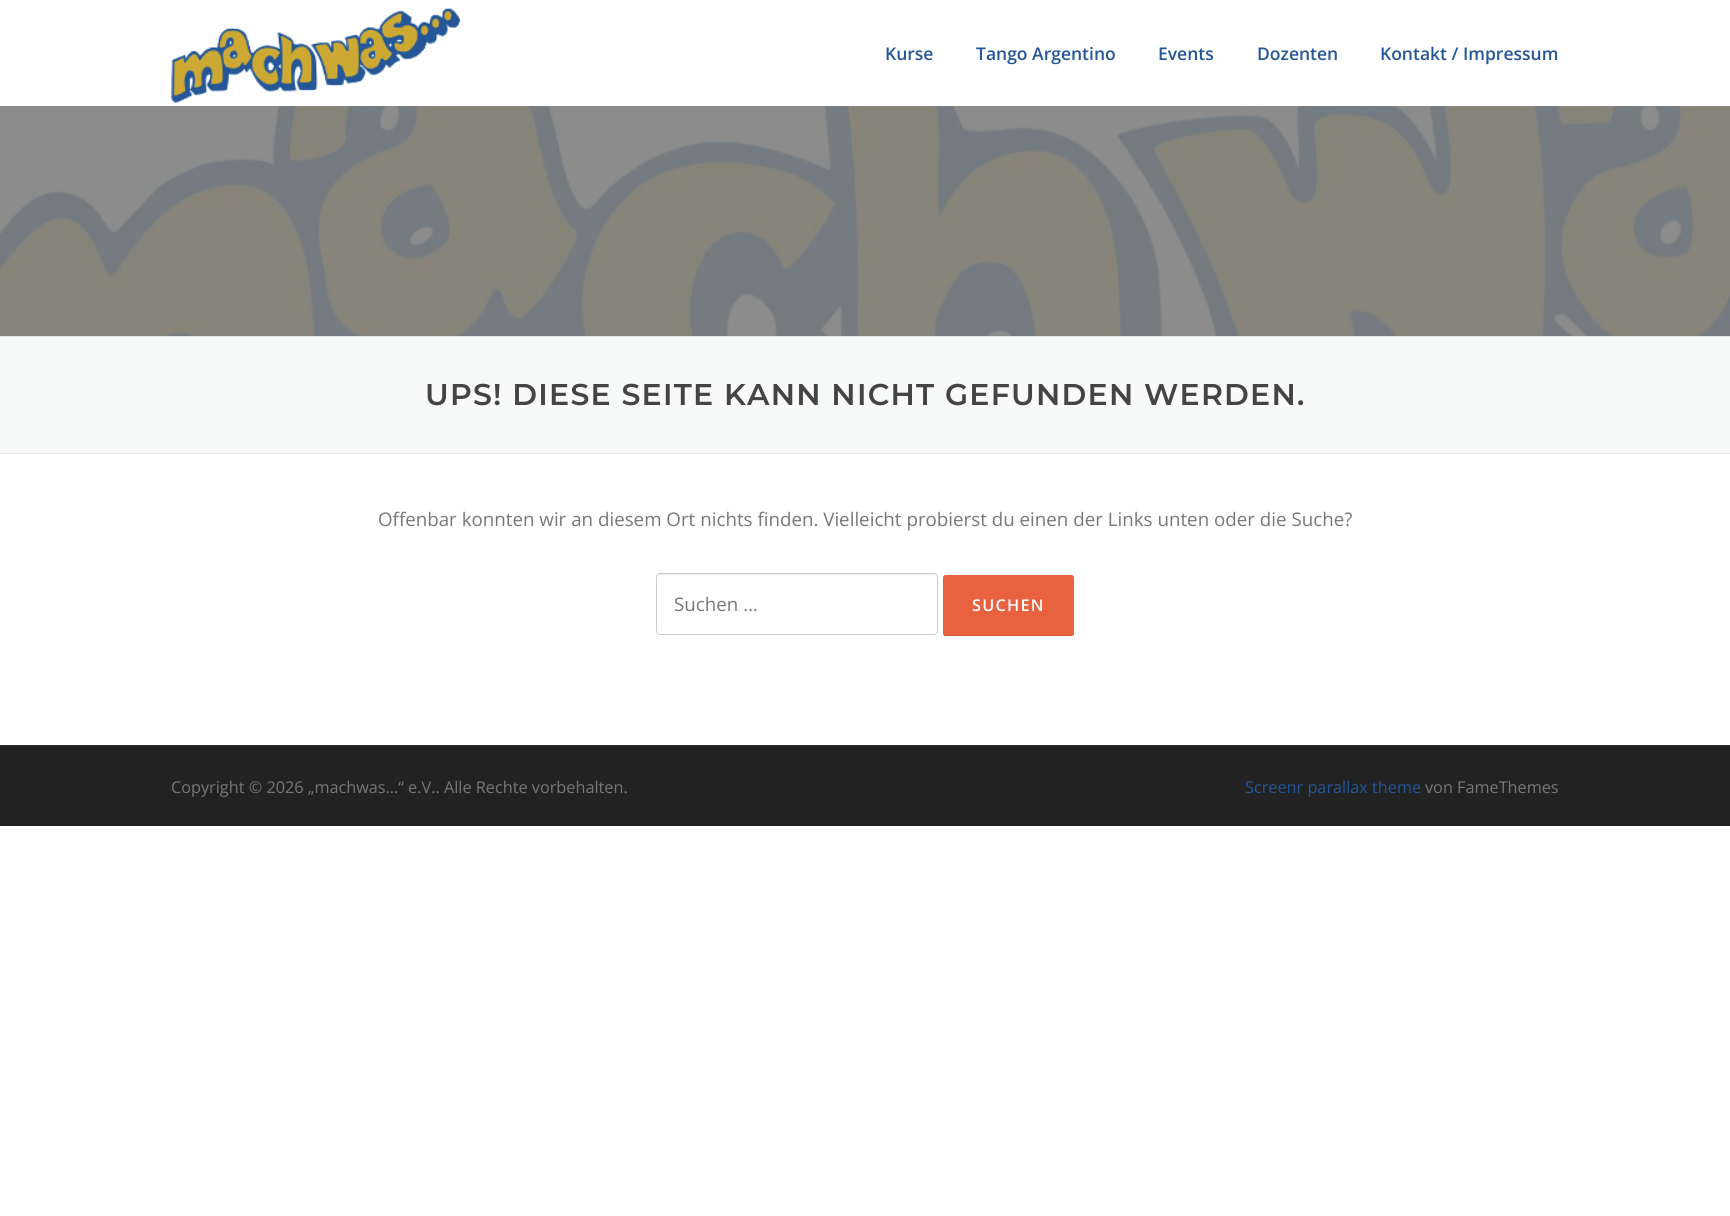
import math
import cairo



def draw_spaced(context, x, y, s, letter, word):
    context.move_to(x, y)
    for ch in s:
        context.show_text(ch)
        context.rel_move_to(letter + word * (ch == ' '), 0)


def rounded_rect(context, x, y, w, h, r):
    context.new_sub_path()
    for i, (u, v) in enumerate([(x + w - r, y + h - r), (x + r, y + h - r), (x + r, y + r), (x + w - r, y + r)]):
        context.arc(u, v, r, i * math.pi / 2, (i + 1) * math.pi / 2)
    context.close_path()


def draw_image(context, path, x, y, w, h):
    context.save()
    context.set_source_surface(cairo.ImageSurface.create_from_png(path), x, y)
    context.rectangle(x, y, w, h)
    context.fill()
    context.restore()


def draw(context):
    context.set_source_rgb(1, 1, 1)
    context.paint()
    draw_image(context, "images/1.png", 171, 7, 289, 96)
    draw_image(context, "images/2.png", 0, 106, 1730, 230)
    context.set_source_rgb(248 / 255, 249 / 255, 249 / 255)
    context.rectangle(0, 337, 1730, 116)
    context.fill()
    context.set_source_rgb(233 / 255, 233 / 255, 233 / 255)
    context.rectangle(0, 336, 1730, 1)
    context.fill()
    context.rectangle(0, 453, 1730, 1)
    context.fill()
    context.set_source_rgb(235 / 255, 235 / 255, 235 / 255)
    context.new_path()
    context.move_to(660, 575)
    context.line_to(934, 575)
    context.line_to(936, 576)
    context.line_to(936, 578)
    context.line_to(936, 576)
    context.curve_to(936, 575, 935, 574, 934, 574)
    context.line_to(660, 574)
    context.curve_to(659, 574, 658, 575, 658, 576)
    context.line_to(658, 578)
    context.curve_to(658, 576, 659, 575, 660, 575)
    context.close_path()
    context.fill()
    rounded_rect(context, 656.5, 573.5, 281, 61, 3.5)
    context.set_source_rgb(204 / 255, 204 / 255, 204 / 255)
    context.set_line_width(1)
    context.stroke()
    context.set_source_rgb(232 / 255, 98 / 255, 64 / 255)
    rounded_rect(context, 943, 575, 131, 61, 2.5)
    context.fill()
    context.set_source_rgba(0, 0, 0, 0.1)
    context.new_path()
    context.move_to(943, 634)
    context.curve_to(943, 635, 944, 636, 946, 636)
    context.line_to(1072, 636)
    context.curve_to(1074, 636, 1074, 634, 1074, 632)
    context.curve_to(1074, 634, 1073, 635, 1071, 635)
    context.line_to(945, 635)
    context.close_path()
    context.fill()
    context.set_source_rgb(34 / 255, 34 / 255, 34 / 255)
    context.rectangle(0, 746, 1730, 80)
    context.fill()
    context.set_source_rgb(51 / 255, 51 / 255, 51 / 255)
    context.rectangle(0, 745, 1730, 1)
    context.fill()
    context.select_font_face("Open Sans SemiBold")
    context.set_font_size(17.5)
    context.set_source_rgb(36 / 255, 86 / 255, 152 / 255)
    context.move_to(885, 60)
    context.show_text("Kurse")
    context.move_to(976, 60)
    context.show_text("Tango Argentino")
    context.move_to(1158, 60)
    context.show_text("Events")
    context.move_to(1257, 60)
    context.show_text("Dozenten")
    context.move_to(1380, 60)
    context.show_text("Kontakt / Impressum")
    context.select_font_face("Montserrat SemiBold")
    context.set_font_size(30)
    context.set_source_rgb(68 / 255, 68 / 255, 68 / 255)
    draw_spaced(context, 425, 405, "UPS! DIESE SEITE KANN NICHT GEFUNDEN WERDEN.", 1.25, 0)
    context.select_font_face("Open Sans")
    context.set_font_size(18.75)
    context.set_source_rgb(119 / 255, 119 / 255, 119 / 255)
    context.move_to(378, 526)
    context.show_text("Offenbar konnten wir an diesem Ort nichts finden. Vielleicht probierst du einen der Links unten oder die Suche?")
    context.move_to(674, 611)
    context.show_text("Suchen …")
    context.select_font_face("Open Sans SemiBold")
    context.set_font_size(16.25)
    context.set_source_rgb(1, 1, 1)
    draw_spaced(context, 972, 611, "SUCHEN", 1.25, 0)
    context.select_font_face("Open Sans")
    context.set_source_rgb(119 / 255, 119 / 255, 119 / 255)
    context.move_to(171, 793)
    context.show_text("Copyright © 2026 „machwas…“ e.V.. Alle Rechte vorbehalten.")
    context.set_source_rgb(36 / 255, 86 / 255, 152 / 255)
    context.move_to(1245, 793)
    context.show_text("Screenr parallax theme")
    context.set_source_rgb(119 / 255, 119 / 255, 119 / 255)
    context.move_to(1425, 793)
    context.show_text("von FameThemes")


surface = cairo.ImageSurface(cairo.Format.RGB24, 1730, 1216)
context = cairo.Context(surface)
options = cairo.FontOptions()
options.set_hint_metrics(cairo.HintMetrics.OFF)
options.set_hint_style(cairo.HintStyle.NONE)
context.set_font_options(options)
context.set_miter_limit(4)
draw(context)
surface.write_to_png("out.png")
